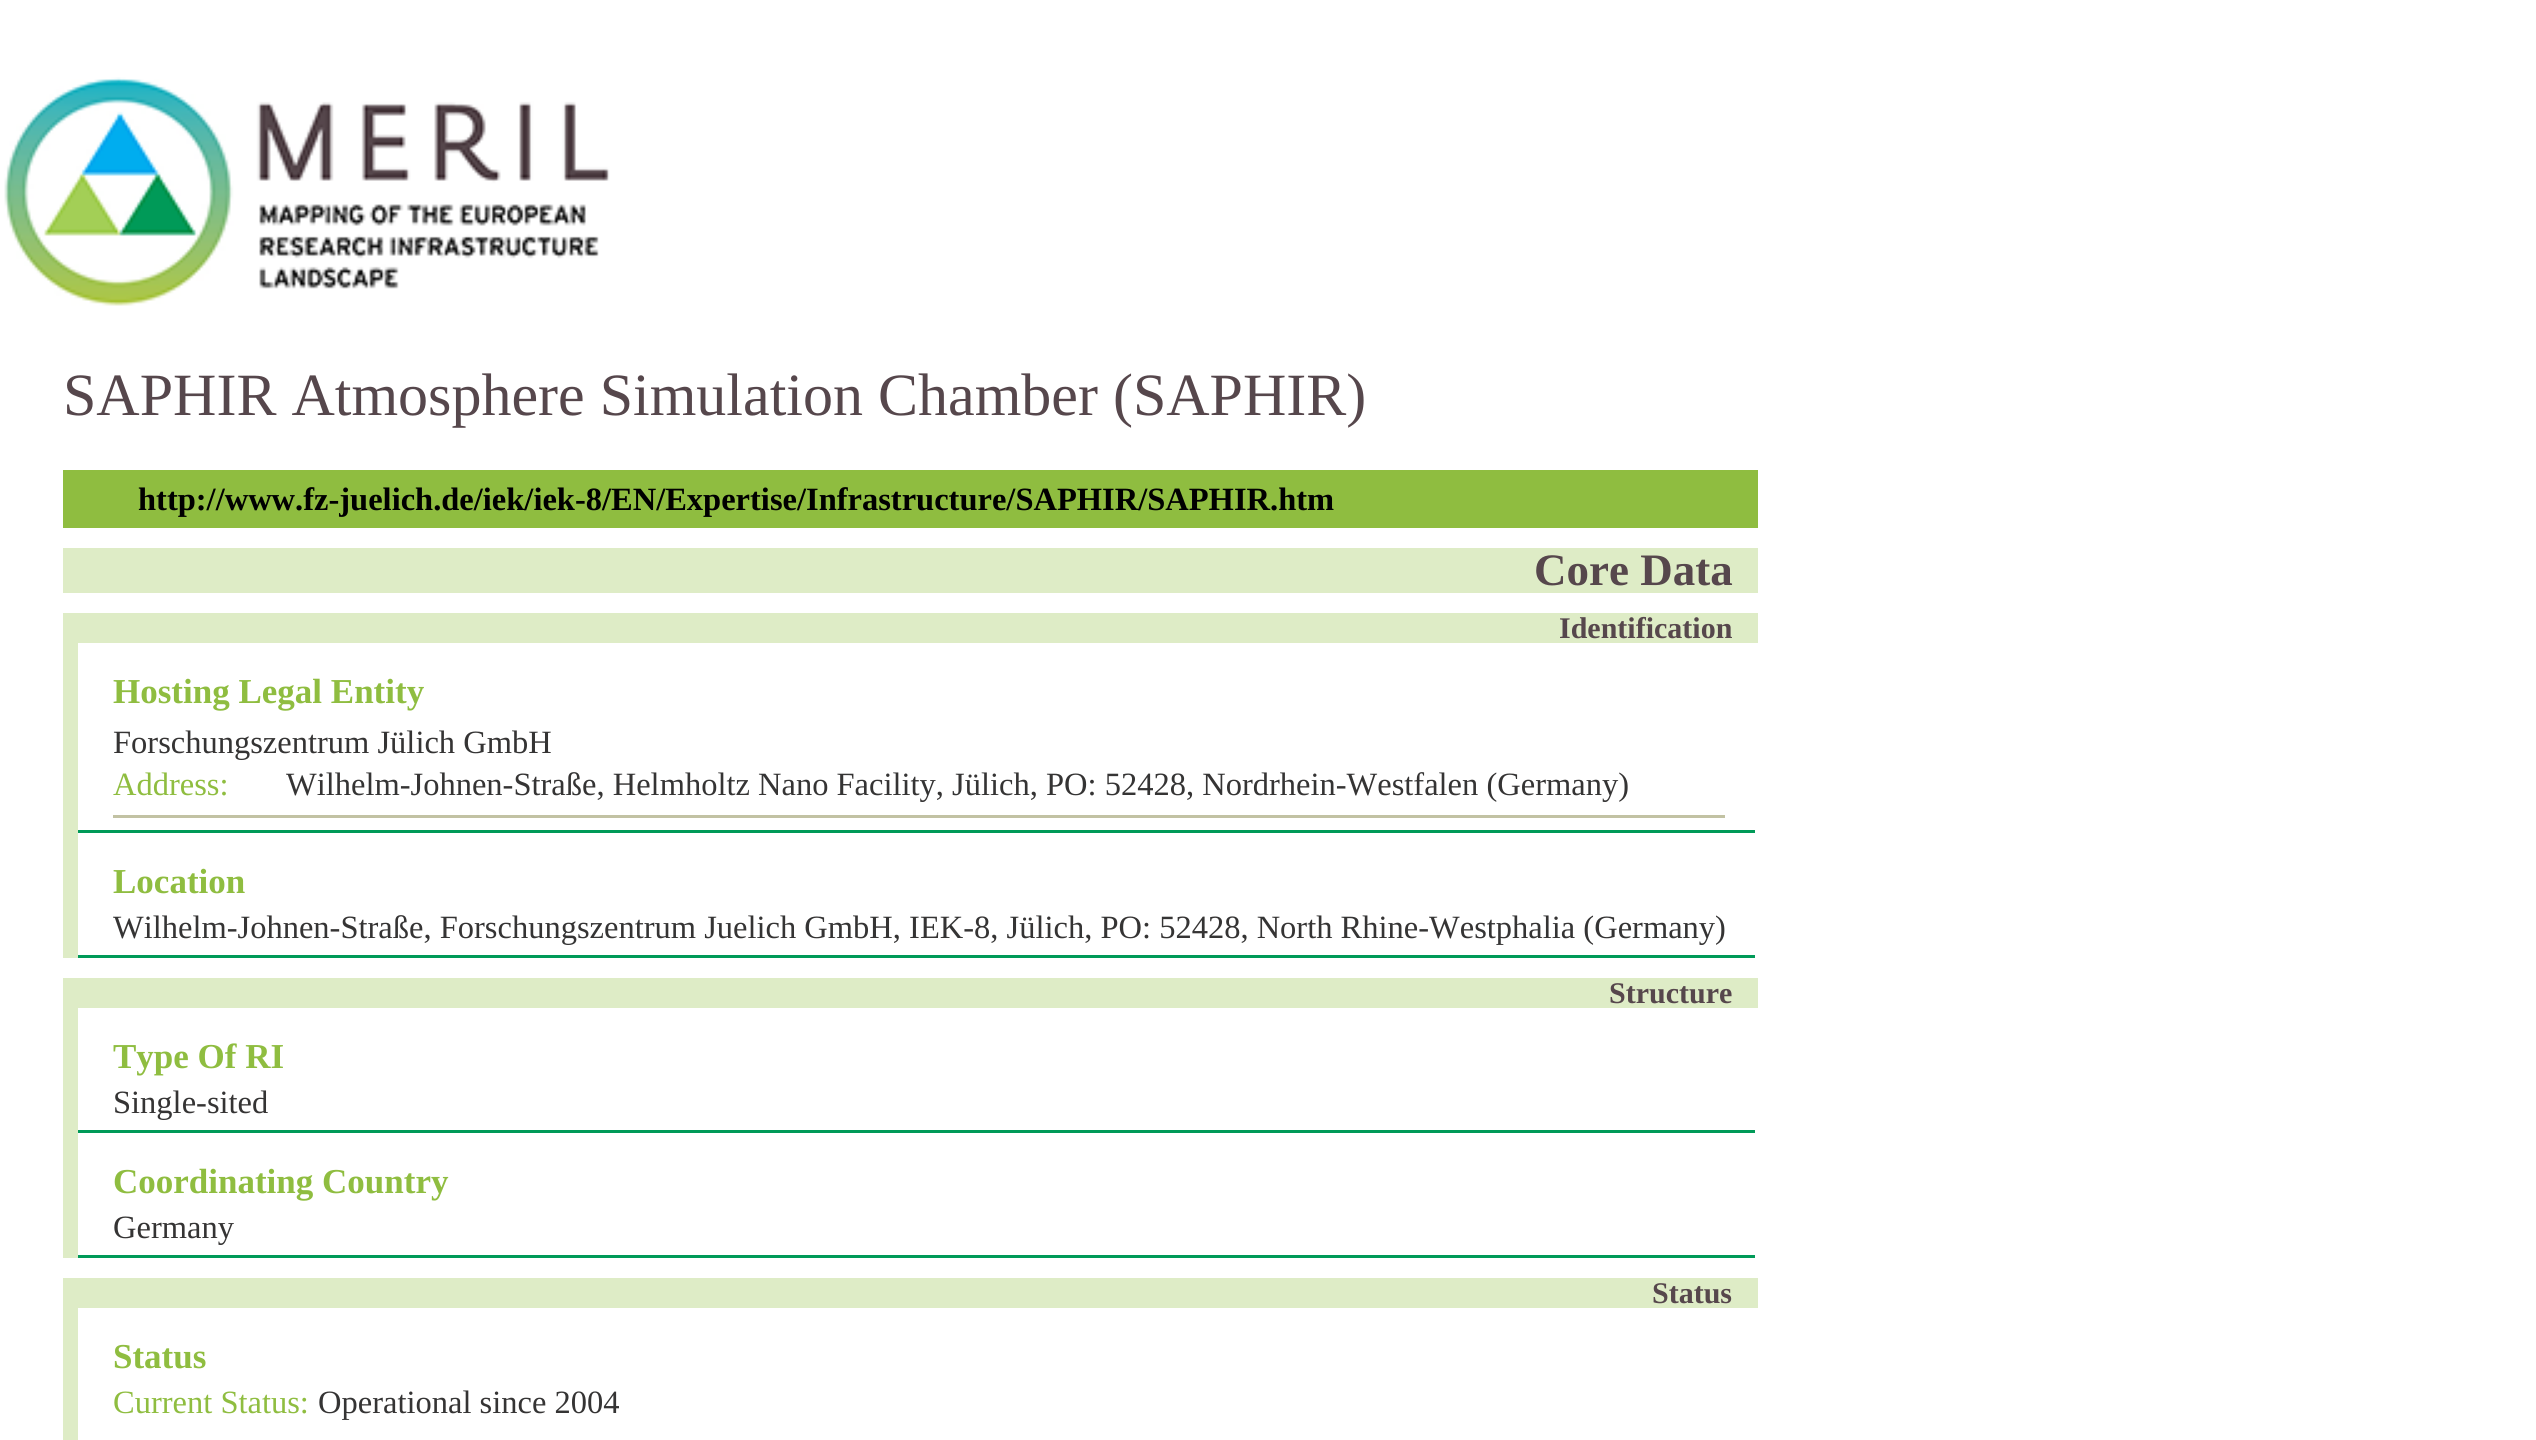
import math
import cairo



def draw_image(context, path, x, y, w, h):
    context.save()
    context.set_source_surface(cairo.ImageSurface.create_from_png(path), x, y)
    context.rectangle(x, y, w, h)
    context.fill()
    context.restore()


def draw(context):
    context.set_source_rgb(1, 1, 1)
    context.paint()
    draw_image(context, "images/1.png", 4, 77, 606, 229)
    context.set_source_rgb(143 / 255, 189 / 255, 64 / 255)
    context.rectangle(63, 470, 1695, 58)
    context.fill()
    context.set_source_rgb(222 / 255, 236 / 255, 198 / 255)
    context.rectangle(63, 548, 1695, 45)
    context.fill()
    context.rectangle(63, 613, 1695, 30)
    context.fill()
    context.rectangle(63, 643, 15, 315)
    context.fill()
    context.set_source_rgb(194 / 255, 194 / 255, 163 / 255)
    context.rectangle(113, 815, 1612, 3)
    context.fill()
    context.set_source_rgb(0, 154 / 255, 88 / 255)
    context.rectangle(78, 830, 1677, 3)
    context.fill()
    context.rectangle(78, 955, 1677, 3)
    context.fill()
    context.set_source_rgb(222 / 255, 236 / 255, 198 / 255)
    context.rectangle(63, 978, 1695, 30)
    context.fill()
    context.rectangle(63, 1008, 15, 250)
    context.fill()
    context.set_source_rgb(0, 154 / 255, 88 / 255)
    context.rectangle(78, 1130, 1677, 3)
    context.fill()
    context.rectangle(78, 1255, 1677, 3)
    context.fill()
    context.set_source_rgb(222 / 255, 236 / 255, 198 / 255)
    context.rectangle(63, 1278, 1695, 30)
    context.fill()
    context.rectangle(63, 1308, 15, 132)
    context.fill()
    context.select_font_face("Liberation Serif")
    context.set_font_size(60)
    context.set_source_rgb(86 / 255, 71 / 255, 76 / 255)
    context.move_to(63, 415)
    context.show_text("SAPHIR Atmosphere Simulation Chamber (SAPHIR)")
    context.select_font_face("Liberation Serif", cairo.FontSlant.NORMAL, cairo.FontWeight.BOLD)
    context.set_font_size(32.5)
    context.set_source_rgb(0, 0, 0)
    context.move_to(138, 510)
    context.show_text("http://www.fz-juelich.de/iek/iek-8/EN/Expertise/Infrastructure/SAPHIR/SAPHIR.htm")
    context.set_font_size(45)
    context.set_source_rgb(86 / 255, 71 / 255, 76 / 255)
    context.move_to(1534, 585)
    context.show_text("Core Data")
    context.set_font_size(30)
    context.move_to(1559, 638)
    context.show_text("Identification")
    context.set_font_size(35)
    context.set_source_rgb(143 / 255, 189 / 255, 64 / 255)
    context.move_to(113, 703)
    context.show_text("Hosting Legal Entity")
    context.select_font_face("Liberation Serif")
    context.set_font_size(32.5)
    context.set_source_rgb(53 / 255, 52 / 255, 52 / 255)
    context.move_to(113, 753)
    context.show_text("Forschungszentrum Jülich GmbH")
    context.set_source_rgb(143 / 255, 189 / 255, 64 / 255)
    context.move_to(113, 795)
    context.show_text("Address:")
    context.set_source_rgb(53 / 255, 52 / 255, 52 / 255)
    context.move_to(286, 795)
    context.show_text("Wilhelm-Johnen-Straße, Helmholtz Nano Facility, Jülich, PO: 52428, Nordrhein-Westfalen (Germany)")
    context.select_font_face("Liberation Serif", cairo.FontSlant.NORMAL, cairo.FontWeight.BOLD)
    context.set_font_size(35)
    context.set_source_rgb(143 / 255, 189 / 255, 64 / 255)
    context.move_to(113, 893)
    context.show_text("Location")
    context.select_font_face("Liberation Serif")
    context.set_font_size(32.5)
    context.set_source_rgb(53 / 255, 52 / 255, 52 / 255)
    context.move_to(113, 938)
    context.show_text("Wilhelm-Johnen-Straße, Forschungszentrum Juelich GmbH, IEK-8, Jülich, PO: 52428, North Rhine-Westphalia (Germany)")
    context.select_font_face("Liberation Serif", cairo.FontSlant.NORMAL, cairo.FontWeight.BOLD)
    context.set_font_size(30)
    context.set_source_rgb(86 / 255, 71 / 255, 76 / 255)
    context.move_to(1609, 1003)
    context.show_text("Structure")
    context.set_font_size(35)
    context.set_source_rgb(143 / 255, 189 / 255, 64 / 255)
    context.move_to(113, 1068)
    context.show_text("Type Of RI")
    context.select_font_face("Liberation Serif")
    context.set_font_size(32.5)
    context.set_source_rgb(53 / 255, 52 / 255, 52 / 255)
    context.move_to(113, 1113)
    context.show_text("Single-sited")
    context.select_font_face("Liberation Serif", cairo.FontSlant.NORMAL, cairo.FontWeight.BOLD)
    context.set_font_size(35)
    context.set_source_rgb(143 / 255, 189 / 255, 64 / 255)
    context.move_to(113, 1193)
    context.show_text("Coordinating Country")
    context.select_font_face("Liberation Serif")
    context.set_font_size(32.5)
    context.set_source_rgb(53 / 255, 52 / 255, 52 / 255)
    context.move_to(113, 1238)
    context.show_text("Germany")
    context.select_font_face("Liberation Serif", cairo.FontSlant.NORMAL, cairo.FontWeight.BOLD)
    context.set_font_size(30)
    context.set_source_rgb(86 / 255, 71 / 255, 76 / 255)
    context.move_to(1652, 1303)
    context.show_text("Status")
    context.set_font_size(35)
    context.set_source_rgb(143 / 255, 189 / 255, 64 / 255)
    context.move_to(113, 1368)
    context.show_text("Status")
    context.select_font_face("Liberation Serif")
    context.set_font_size(32.5)
    context.move_to(113, 1413)
    context.show_text("Current Status:")
    context.set_source_rgb(53 / 255, 52 / 255, 52 / 255)
    context.move_to(318, 1413)
    context.show_text("Operational since 2004")


surface = cairo.ImageSurface(cairo.Format.RGB24, 2536, 1440)
context = cairo.Context(surface)
options = cairo.FontOptions()
options.set_hint_metrics(cairo.HintMetrics.OFF)
options.set_hint_style(cairo.HintStyle.NONE)
context.set_font_options(options)
context.set_miter_limit(4)
draw(context)
surface.write_to_png("out.png")
